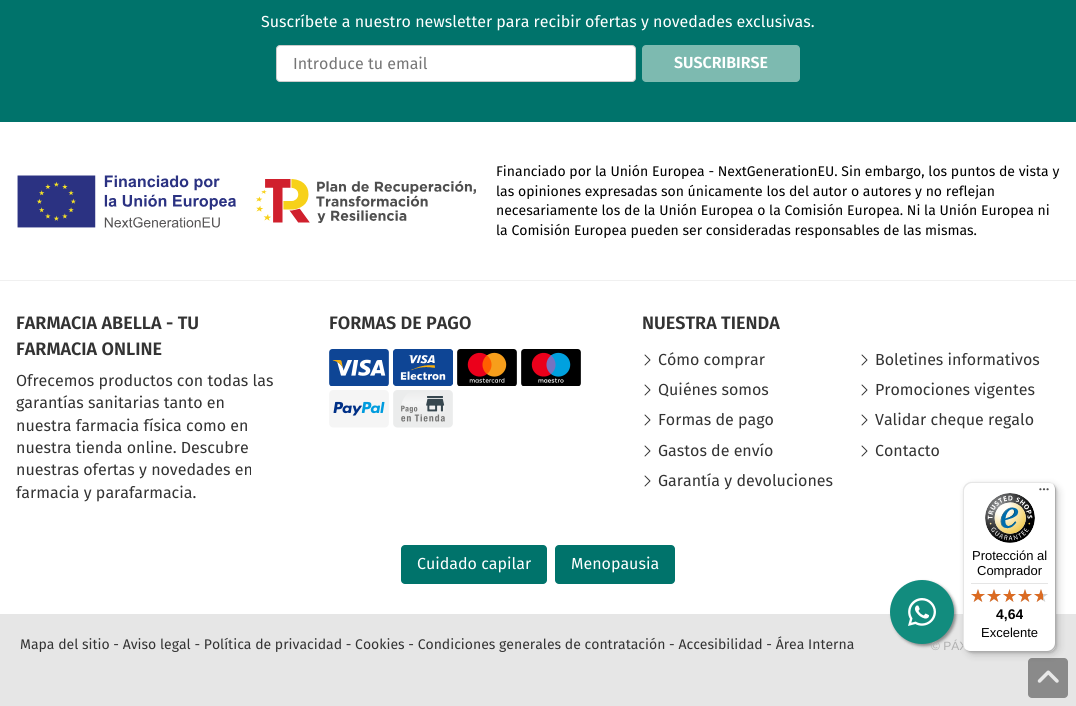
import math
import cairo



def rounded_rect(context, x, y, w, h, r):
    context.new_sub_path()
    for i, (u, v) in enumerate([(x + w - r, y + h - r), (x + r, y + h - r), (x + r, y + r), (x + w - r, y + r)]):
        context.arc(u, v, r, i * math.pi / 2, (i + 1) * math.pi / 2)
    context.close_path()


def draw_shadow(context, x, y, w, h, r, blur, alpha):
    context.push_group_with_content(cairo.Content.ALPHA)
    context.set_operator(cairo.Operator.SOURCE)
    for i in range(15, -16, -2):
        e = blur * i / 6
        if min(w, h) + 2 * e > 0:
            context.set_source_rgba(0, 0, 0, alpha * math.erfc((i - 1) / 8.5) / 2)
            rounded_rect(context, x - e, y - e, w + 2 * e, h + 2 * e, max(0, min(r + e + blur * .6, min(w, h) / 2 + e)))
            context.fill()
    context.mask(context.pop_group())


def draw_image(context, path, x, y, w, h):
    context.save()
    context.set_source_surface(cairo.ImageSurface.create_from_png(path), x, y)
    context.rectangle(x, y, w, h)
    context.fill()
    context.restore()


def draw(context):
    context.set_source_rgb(1, 1, 1)
    context.paint()
    context.set_source_rgb(0, 115 / 255, 107 / 255)
    context.rectangle(0, 0, 1076, 122)
    context.fill()
    context.set_source_rgb(1, 1, 1)
    rounded_rect(context, 276.5, 45.5, 359, 36, 3.5)
    context.fill_preserve()
    context.set_source_rgb(204 / 255, 204 / 255, 204 / 255)
    context.set_line_width(1)
    context.stroke()
    context.set_source_rgb(125 / 255, 186 / 255, 176 / 255)
    rounded_rect(context, 642, 45, 158, 37, 4)
    context.fill()
    draw_image(context, "images/1.png", 17, 175, 219, 53)
    draw_image(context, "images/2.png", 256, 179, 220, 44)
    context.set_source_rgb(240 / 255, 240 / 255, 240 / 255)
    context.rectangle(0, 280, 1076, 1)
    context.fill()
    draw_image(context, "images/3.png", 329, 349, 60, 37)
    draw_image(context, "images/4.png", 393, 349, 60, 37)
    draw_image(context, "images/5.png", 457, 349, 60, 37)
    draw_image(context, "images/6.png", 521, 349, 60, 37)
    draw_image(context, "images/7.png", 329, 390, 60, 38)
    draw_image(context, "images/8.png", 393, 390, 60, 38)
    draw_image(context, "images/9.png", 644, 354, 7, 12)
    draw_image(context, "images/9.png", 861, 354, 7, 12)
    draw_image(context, "images/9.png", 644, 384, 7, 12)
    draw_image(context, "images/9.png", 861, 384, 7, 12)
    draw_image(context, "images/9.png", 644, 414, 7, 12)
    draw_image(context, "images/9.png", 861, 414, 7, 12)
    draw_image(context, "images/9.png", 644, 445, 7, 12)
    draw_image(context, "images/9.png", 861, 445, 7, 12)
    draw_image(context, "images/9.png", 644, 475, 7, 12)
    context.set_source_rgb(0, 115 / 255, 107 / 255)
    rounded_rect(context, 401, 545, 146, 39, 4)
    context.fill()
    rounded_rect(context, 555, 545, 120, 39, 4)
    context.fill()
    context.set_source_rgb(230 / 255, 230 / 255, 230 / 255)
    context.rectangle(0, 614, 1076, 92)
    context.fill()
    context.set_source_rgb(0, 0, 0)
    draw_shadow(context, 892, 582, 64, 64, 32, 1.5, 0.4)
    draw_shadow(context, 964, 483, 93, 170, 8, 1, 0.15)
    context.set_source_rgb(138 / 255, 138 / 255, 138 / 255)
    rounded_rect(context, 1028, 658, 40, 40, 4)
    context.fill()
    draw_image(context, "images/18.png", 1037, 670, 22, 13)
    context.select_font_face("Fira Sans")
    context.set_font_size(16)
    context.set_source_rgb(1, 1, 1)
    context.move_to(261, 27)
    context.show_text("Suscríbete a nuestro newsletter para recibir ofertas y novedades exclusivas.")
    context.set_source_rgb(117 / 255, 117 / 255, 117 / 255)
    context.move_to(293, 69)
    context.show_text("Introduce tu email")
    context.select_font_face("Fira Sans SemiBold")
    context.set_source_rgb(1, 1, 1)
    context.move_to(674, 68)
    context.show_text("SUSCRIBIRSE")
    context.select_font_face("Fira Sans")
    context.set_font_size(14)
    context.set_source_rgb(0, 0, 0)
    context.move_to(496, 176)
    context.show_text("Financiado por la Unión Europea - NextGenerationEU. Sin embargo, los puntos de vista y")
    context.move_to(496, 196)
    context.show_text("las opiniones expresadas son únicamente los del autor o autores y no reflejan")
    context.move_to(496, 215)
    context.show_text("necesariamente los de la Unión Europea o la Comisión Europea. Ni la Unión Europea ni")
    context.move_to(496, 235)
    context.show_text("la Comisión Europea pueden ser consideradas responsables de las mismas.")
    context.select_font_face("Fira Sans SemiBold")
    context.set_font_size(18)
    context.set_source_rgb(51 / 255, 51 / 255, 51 / 255)
    context.move_to(16, 329)
    context.show_text("FARMACIA ABELLA - TU")
    context.move_to(16, 355)
    context.show_text("FARMACIA ONLINE")
    context.select_font_face("Fira Sans")
    context.set_font_size(16)
    context.move_to(16, 386)
    context.show_text("Ofrecemos productos con todas las")
    context.move_to(16, 408)
    context.show_text("garantías sanitarias tanto en")
    context.move_to(16, 431)
    context.show_text("nuestra farmacia física como en")
    context.move_to(16, 453)
    context.show_text("nuestra tienda online. Descubre")
    context.move_to(16, 475)
    context.show_text("nuestras ofertas y novedades en")
    context.move_to(16, 498)
    context.show_text("farmacia y parafarmacia.")
    context.select_font_face("Fira Sans SemiBold")
    context.set_font_size(18)
    context.move_to(329, 329)
    context.show_text("FORMAS DE PAGO")
    context.move_to(642, 329)
    context.show_text("NUESTRA TIENDA")
    context.select_font_face("Fira Sans")
    context.set_font_size(16)
    context.move_to(658, 365)
    context.show_text("Cómo comprar")
    context.move_to(875, 365)
    context.show_text("Boletines informativos")
    context.move_to(658, 395)
    context.show_text("Quiénes somos")
    context.move_to(875, 395)
    context.show_text("Promociones vigentes")
    context.move_to(658, 425)
    context.show_text("Formas de pago")
    context.move_to(875, 425)
    context.show_text("Validar cheque regalo")
    context.move_to(658, 456)
    context.show_text("Gastos de envío")
    context.move_to(875, 456)
    context.show_text("Contacto")
    context.move_to(658, 486)
    context.show_text("Garantía y devoluciones")
    context.set_source_rgb(1, 1, 1)
    context.move_to(417, 569)
    context.show_text("Cuidado capilar")
    context.move_to(571, 569)
    context.show_text("Menopausia")
    context.set_font_size(14)
    context.set_source_rgb(51 / 255, 51 / 255, 51 / 255)
    context.move_to(20, 649)
    context.show_text("Mapa del sitio - Aviso legal - Política de privacidad - Cookies - Condiciones generales de contratación - Accesibilidad - Área Interna")
    context.select_font_face("Liberation Sans")
    context.set_font_size(12)
    context.set_source_rgb(176 / 255, 176 / 255, 176 / 255)
    context.move_to(931, 650)
    context.show_text("© PÁX")
    context.set_source_rgb(18 / 255, 140 / 255, 126 / 255)
    context.new_path()
    context.arc(922, 612, 32, 0, 2 * math.pi)
    context.fill()
    draw_image(context, "images/10.png", 908, 598, 28, 28)
    context.set_source_rgb(0, 0, 0)
    draw_shadow(context, 966, 485, 93, 170, 8, 4, 0.15)
    context.set_source_rgb(1, 1, 1)
    rounded_rect(context, 963, 482, 93, 170, 8)
    context.fill()
    context.set_source_rgba(0, 0, 0, 0.1)
    context.new_path()
    context.move_to(972, 483)
    context.line_to(1049, 483)
    context.curve_to(1051, 483, 1053, 484, 1055, 486)
    context.curve_to(1053, 484, 1051, 482, 1048, 482)
    context.line_to(971, 482)
    context.curve_to(967, 482, 963, 486, 963, 490)
    context.line_to(963, 644)
    context.curve_to(963, 647, 965, 649, 967, 651)
    context.curve_to(965, 649, 964, 647, 964, 645)
    context.line_to(964, 491)
    context.curve_to(964, 487, 968, 483, 972, 483)
    context.close_path()
    context.fill()
    context.set_source_rgba(0, 0, 0, 0.2)
    context.new_path()
    context.move_to(964, 648)
    context.curve_to(966, 650, 968, 652, 971, 652)
    context.line_to(1048, 652)
    context.curve_to(1052, 652, 1056, 648, 1056, 644)
    context.line_to(1056, 490)
    context.curve_to(1056, 487, 1054, 485, 1052, 483)
    context.curve_to(1054, 485, 1055, 487, 1055, 489)
    context.line_to(1055, 643)
    context.curve_to(1055, 647, 1051, 651, 1047, 651)
    context.line_to(970, 651)
    context.curve_to(968, 651, 966, 650, 964, 648)
    context.close_path()
    context.fill()
    context.set_source_rgba(50 / 255, 50 / 255, 50 / 255, 0.2)
    context.new_path()
    context.move_to(965, 649)
    context.curve_to(966, 651, 969, 652, 971, 652)
    context.line_to(1048, 652)
    context.curve_to(1052, 652, 1056, 648, 1056, 644)
    context.line_to(1056, 490)
    context.curve_to(1056, 488, 1055, 485, 1053, 484)
    context.curve_to(1054, 485, 1055, 487, 1055, 489)
    context.line_to(1055, 643)
    context.curve_to(1055, 648, 1052, 651, 1047, 651)
    context.line_to(970, 651)
    context.curve_to(968, 651, 966, 650, 965, 649)
    context.close_path()
    context.fill()
    draw_image(context, "images/11.png", 1039, 488, 10, 3)
    context.set_source_rgba(1, 1, 1, 0.3)
    context.new_path()
    context.move_to(1048, 652)
    context.curve_to(1052.5, 652, 1056, 648.5, 1056, 644)
    context.curve_to(1056, 648, 1052, 652, 1048, 652)
    context.close_path()
    context.fill()
    draw_image(context, "images/12.png", 985, 493, 50, 50)
    context.set_font_size(13)
    context.set_source_rgb(0, 0, 0)
    context.move_to(972, 560)
    context.show_text("Protección al")
    context.move_to(977, 575)
    context.show_text("Comprador")
    context.set_source_rgb(229 / 255, 229 / 255, 229 / 255)
    context.rectangle(971, 583, 77, 1)
    context.fill()
    draw_image(context, "images/13.png", 971, 589, 14, 13)
    draw_image(context, "images/13.png", 987, 589, 14, 13)
    draw_image(context, "images/14.png", 1003, 589, 13, 13)
    draw_image(context, "images/13.png", 1018, 589, 14, 13)
    draw_image(context, "images/13.png", 1034, 589, 14, 13)
    draw_image(context, "images/15.png", 971, 589, 14, 13)
    draw_image(context, "images/15.png", 987, 589, 14, 13)
    draw_image(context, "images/16.png", 1003, 589, 13, 13)
    draw_image(context, "images/15.png", 1018, 589, 14, 13)
    draw_image(context, "images/17.png", 1034, 589, 9, 13)
    context.select_font_face("Liberation Sans", cairo.FontSlant.NORMAL, cairo.FontWeight.BOLD)
    context.set_font_size(14)
    context.set_source_rgb(0, 0, 0)
    context.move_to(996, 619)
    context.show_text("4,64")
    context.select_font_face("Liberation Sans")
    context.set_font_size(13)
    context.move_to(981, 637)
    context.show_text("Excelente")


surface = cairo.ImageSurface(cairo.Format.RGB24, 1076, 706)
context = cairo.Context(surface)
options = cairo.FontOptions()
options.set_hint_metrics(cairo.HintMetrics.OFF)
options.set_hint_style(cairo.HintStyle.NONE)
context.set_font_options(options)
context.set_miter_limit(4)
draw(context)
surface.write_to_png("out.png")
